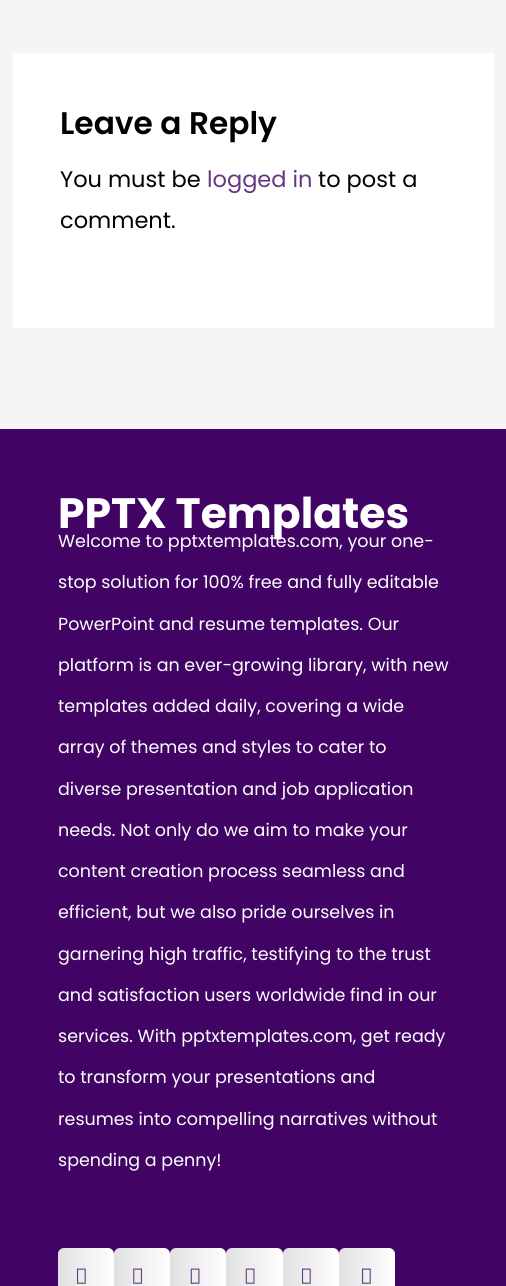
import math
import cairo



def rounded_rect(context, x, y, w, h, r):
    context.new_sub_path()
    for i, (u, v) in enumerate([(x + w - r, y + h - r), (x + r, y + h - r), (x + r, y + r), (x + w - r, y + r)]):
        context.arc(u, v, r, i * math.pi / 2, (i + 1) * math.pi / 2)
    context.close_path()


def draw_image(context, path, x, y, w, h):
    context.save()
    context.set_source_surface(cairo.ImageSurface.create_from_png(path), x, y)
    context.rectangle(x, y, w, h)
    context.fill()
    context.restore()


def draw(context):
    context.set_source_rgb(245 / 255, 245 / 255, 245 / 255)
    context.paint()
    context.set_source_rgb(1, 1, 1)
    context.rectangle(13, 53, 481, 275)
    context.fill()
    context.set_source_rgb(65 / 255, 4 / 255, 100 / 255)
    context.rectangle(0, 429, 506, 857)
    context.fill()
    context.set_source_rgb(1, 1, 1)
    rounded_rect(context, 58, 1248, 56, 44, 6)
    context.fill()
    gradient = cairo.LinearGradient(58, 1276, 114, 1276)
    gradient.add_color_stop_rgba(0, 0, 0, 0, 0.12)
    gradient.add_color_stop_rgba(1, 0, 0, 0, 0)
    context.set_source(gradient)
    rounded_rect(context, 58, 1248, 56, 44, 6)
    context.fill()
    draw_image(context, "images/1.png", 77, 1268, 9, 16)
    context.set_source_rgb(1, 1, 1)
    rounded_rect(context, 114, 1248, 56, 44, 6)
    context.fill()
    gradient = cairo.LinearGradient(114, 1276, 170, 1276)
    gradient.add_color_stop_rgba(0, 0, 0, 0, 0.12)
    gradient.add_color_stop_rgba(1, 0, 0, 0, 0)
    context.set_source(gradient)
    rounded_rect(context, 114, 1248, 56, 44, 6)
    context.fill()
    draw_image(context, "images/2.png", 133, 1268, 9, 16)
    context.set_source_rgb(1, 1, 1)
    rounded_rect(context, 170, 1248, 56, 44, 6)
    context.fill()
    gradient = cairo.LinearGradient(170, 1276, 226, 1276)
    gradient.add_color_stop_rgba(0, 0, 0, 0, 0.12)
    gradient.add_color_stop_rgba(1, 0, 0, 0, 0)
    context.set_source(gradient)
    rounded_rect(context, 170, 1248, 56, 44, 6)
    context.fill()
    draw_image(context, "images/3.png", 190, 1268, 10, 16)
    context.set_source_rgb(1, 1, 1)
    rounded_rect(context, 226, 1248, 57, 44, 6)
    context.fill()
    gradient = cairo.LinearGradient(226, 1276, 283, 1276)
    gradient.add_color_stop_rgba(0, 0, 0, 0, 0.12)
    gradient.add_color_stop_rgba(1, 0, 0, 0, 0)
    context.set_source(gradient)
    rounded_rect(context, 226, 1248, 57, 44, 6)
    context.fill()
    draw_image(context, "images/4.png", 245, 1268, 10, 16)
    context.set_source_rgb(1, 1, 1)
    rounded_rect(context, 283, 1248, 56, 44, 6)
    context.fill()
    gradient = cairo.LinearGradient(283, 1276, 339, 1276)
    gradient.add_color_stop_rgba(0, 0, 0, 0, 0.12)
    gradient.add_color_stop_rgba(1, 0, 0, 0, 0)
    context.set_source(gradient)
    rounded_rect(context, 283, 1248, 56, 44, 6)
    context.fill()
    draw_image(context, "images/1.png", 302, 1268, 9, 16)
    context.set_source_rgb(1, 1, 1)
    rounded_rect(context, 339, 1248, 56, 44, 6)
    context.fill()
    gradient = cairo.LinearGradient(339, 1276, 395, 1276)
    gradient.add_color_stop_rgba(0, 0, 0, 0, 0.12)
    gradient.add_color_stop_rgba(1, 0, 0, 0, 0)
    context.set_source(gradient)
    rounded_rect(context, 339, 1248, 56, 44, 6)
    context.fill()
    draw_image(context, "images/5.png", 362, 1268, 9, 16)
    context.select_font_face("Poppins SemiBold")
    context.set_font_size(31.25)
    context.set_source_rgb(0, 0, 0)
    context.move_to(60, 134)
    context.show_text("Leave a Reply")
    context.select_font_face("Poppins")
    context.set_font_size(22.5)
    context.move_to(60, 187)
    context.show_text("You must be")
    context.set_source_rgb(101 / 255, 55 / 255, 128 / 255)
    context.move_to(207, 187)
    context.show_text("logged in")
    context.set_source_rgb(0, 0, 0)
    context.move_to(318, 187)
    context.show_text("to post a")
    context.move_to(60, 228)
    context.show_text("comment.")
    context.select_font_face("Poppins", cairo.FontSlant.NORMAL, cairo.FontWeight.BOLD)
    context.set_font_size(42.5)
    context.set_source_rgb(1, 1, 1)
    context.move_to(58, 528)
    context.show_text("PPTX Templates")
    context.select_font_face("Poppins")
    context.set_font_size(17.5)
    context.move_to(58, 547)
    context.show_text("Welcome to pptxtemplates.com, your one-")
    context.move_to(58, 588)
    context.show_text("stop solution for 100% free and fully editable")
    context.move_to(58, 630)
    context.show_text("PowerPoint and resume templates. Our")
    context.move_to(58, 671)
    context.show_text("platform is an ever-growing library, with new")
    context.move_to(58, 712)
    context.show_text("templates added daily, covering a wide")
    context.move_to(58, 753)
    context.show_text("array of themes and styles to cater to")
    context.move_to(58, 795)
    context.show_text("diverse presentation and job application")
    context.move_to(58, 836)
    context.show_text("needs. Not only do we aim to make your")
    context.move_to(58, 877)
    context.show_text("content creation process seamless and")
    context.move_to(58, 918)
    context.show_text("efficient, but we also pride ourselves in")
    context.move_to(58, 960)
    context.show_text("garnering high traffic, testifying to the trust")
    context.move_to(58, 1001)
    context.show_text("and satisfaction users worldwide find in our")
    context.move_to(58, 1042)
    context.show_text("services. With pptxtemplates.com, get ready")
    context.move_to(58, 1083)
    context.show_text("to transform your presentations and")
    context.move_to(58, 1125)
    context.show_text("resumes into compelling narratives without")
    context.move_to(58, 1166)
    context.show_text("spending a penny!")


surface = cairo.ImageSurface(cairo.Format.RGB24, 506, 1286)
context = cairo.Context(surface)
options = cairo.FontOptions()
options.set_hint_metrics(cairo.HintMetrics.OFF)
options.set_hint_style(cairo.HintStyle.NONE)
context.set_font_options(options)
context.set_miter_limit(4)
draw(context)
surface.write_to_png("out.png")
